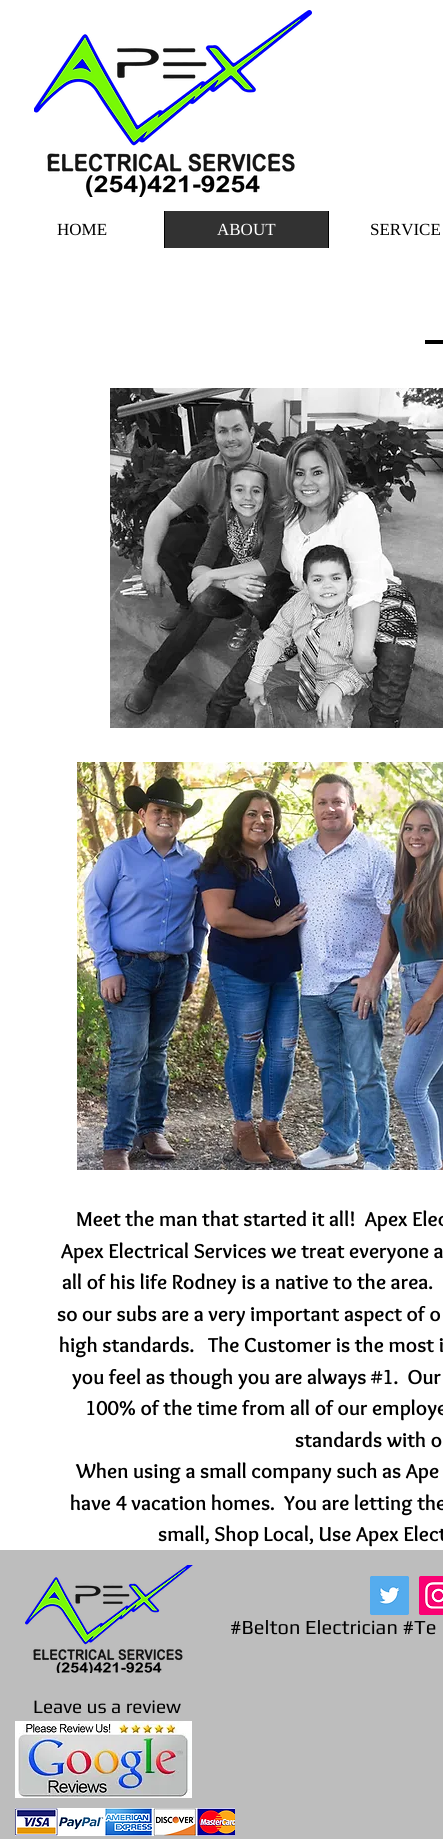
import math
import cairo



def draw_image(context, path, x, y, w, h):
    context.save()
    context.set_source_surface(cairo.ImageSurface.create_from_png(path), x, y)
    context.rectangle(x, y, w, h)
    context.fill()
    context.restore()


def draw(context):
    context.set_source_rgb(1, 1, 1)
    context.paint()
    draw_image(context, "images/1.png", 34, 10, 278, 187)
    context.set_source_rgb(50 / 255, 50 / 255, 50 / 255)
    context.rectangle(165, 211, 163, 37)
    context.fill()
    context.set_source_rgb(0, 0, 0)
    context.rectangle(164, 211, 1, 37)
    context.fill()
    context.rectangle(328, 211, 1, 37)
    context.fill()
    context.rectangle(425, 340, 18, 4)
    context.fill()
    draw_image(context, "images/2.png", 110, 388, 333, 340)
    draw_image(context, "images/3.png", 77, 762, 366, 408)
    context.set_source_rgb(189 / 255, 189 / 255, 189 / 255)
    context.rectangle(0, 1550, 443, 289)
    context.fill()
    draw_image(context, "images/4.png", 25, 1565, 168, 108)
    draw_image(context, "images/5.png", 370, 1576, 39, 39)
    draw_image(context, "images/6.png", 419, 1576, 24, 39)
    draw_image(context, "images/7.png", 15, 1721, 177, 77)
    draw_image(context, "images/8.png", 15, 1808, 220, 28)
    context.select_font_face("Liberation Serif")
    context.set_font_size(17)
    context.set_source_rgb(0, 0, 0)
    context.move_to(57, 235)
    context.show_text("HOME")
    context.set_source_rgb(1, 1, 1)
    context.move_to(217, 235)
    context.show_text("ABOUT")
    context.set_source_rgb(0, 0, 0)
    context.move_to(370, 235)
    context.show_text("SERVICE")
    context.select_font_face("Overlock", cairo.FontSlant.NORMAL, cairo.FontWeight.BOLD)
    context.set_font_size(21)
    context.move_to(76, 1226)
    context.show_text("Meet the man that started it all!  Apex Elec")
    context.move_to(61, 1258)
    context.show_text("Apex Electrical Services we treat everyone a")
    context.move_to(62, 1289)
    context.show_text("all of his life Rodney is a native to the area.")
    context.move_to(57, 1321)
    context.show_text("so our subs are a very important aspect of o")
    context.move_to(59, 1352)
    context.show_text("high standards.   The Customer is the most i")
    context.move_to(72, 1384)
    context.show_text("you feel as though you are always #1.  Our")
    context.move_to(85, 1415)
    context.show_text("100% of the time from all of our employe")
    context.move_to(295, 1447)
    context.show_text("standards with o")
    context.move_to(76, 1478)
    context.show_text("When using a small company such as Ape")
    context.move_to(70, 1510)
    context.show_text("have 4 vacation homes.  You are letting the")
    context.move_to(158, 1541)
    context.show_text("small, Shop Local, Use Apex Elect")
    context.select_font_face("Play")
    context.set_font_size(20)
    context.move_to(230, 1634)
    context.show_text("#Belton Electrician #Te")
    context.set_font_size(19)
    context.move_to(33, 1713)
    context.show_text("Leave us a review")


surface = cairo.ImageSurface(cairo.Format.RGB24, 443, 1839)
context = cairo.Context(surface)
options = cairo.FontOptions()
options.set_hint_metrics(cairo.HintMetrics.OFF)
options.set_hint_style(cairo.HintStyle.NONE)
context.set_font_options(options)
context.set_miter_limit(4)
draw(context)
surface.write_to_png("out.png")
